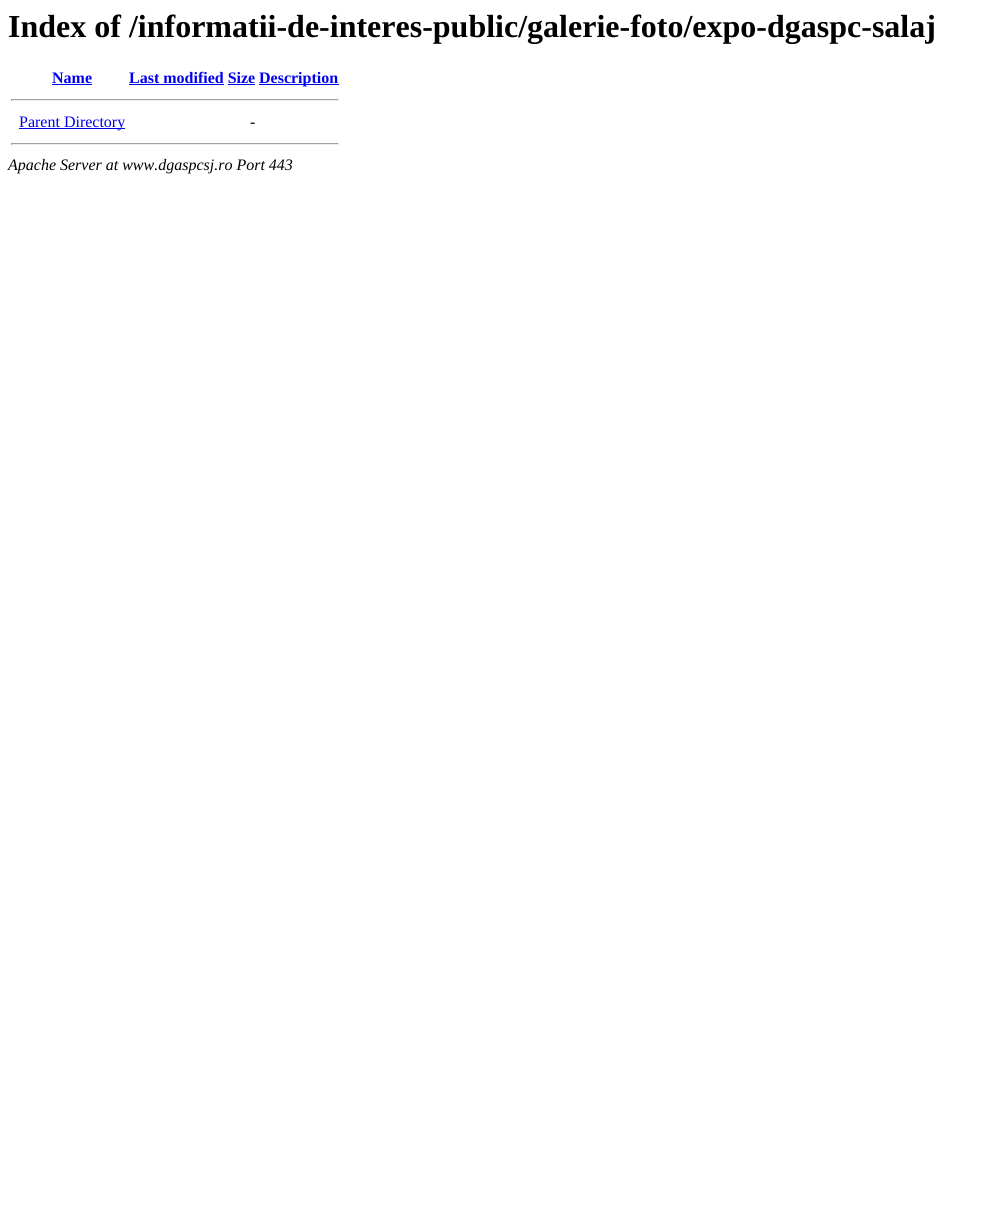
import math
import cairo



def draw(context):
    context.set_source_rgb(1, 1, 1)
    context.paint()
    context.set_source_rgb(0, 0, 238 / 255)
    context.rectangle(52, 84, 40, 1)
    context.fill()
    context.rectangle(129, 84, 95, 1)
    context.fill()
    context.rectangle(259, 84, 80, 1)
    context.fill()
    context.rectangle(228, 84, 27, 1)
    context.fill()
    context.set_source_rgb(159 / 255, 159 / 255, 159 / 255)
    context.rectangle(11, 99, 328, 1)
    context.fill()
    context.set_source_rgb(238 / 255, 238 / 255, 238 / 255)
    context.rectangle(338, 99, 1, 2)
    context.fill()
    context.rectangle(11, 100, 328, 1)
    context.fill()
    context.set_source_rgb(159 / 255, 159 / 255, 159 / 255)
    context.rectangle(11, 99, 1, 2)
    context.fill()
    context.set_source_rgb(0, 0, 238 / 255)
    context.rectangle(19, 128, 106, 1)
    context.fill()
    context.set_source_rgb(159 / 255, 159 / 255, 159 / 255)
    context.rectangle(11, 143, 328, 1)
    context.fill()
    context.set_source_rgb(238 / 255, 238 / 255, 238 / 255)
    context.rectangle(338, 143, 1, 2)
    context.fill()
    context.rectangle(11, 144, 328, 1)
    context.fill()
    context.set_source_rgb(159 / 255, 159 / 255, 159 / 255)
    context.rectangle(11, 143, 1, 2)
    context.fill()
    context.select_font_face("Liberation Serif", cairo.FontSlant.NORMAL, cairo.FontWeight.BOLD)
    context.set_font_size(32)
    context.set_source_rgb(0, 0, 0)
    context.move_to(8, 37)
    context.show_text("Index of /informatii-de-interes-public/galerie-foto/expo-dgaspc-salaj")
    context.set_font_size(16)
    context.set_source_rgb(0, 0, 238 / 255)
    context.move_to(52, 83)
    context.show_text("Name")
    context.move_to(129, 83)
    context.show_text("Last modified Size")
    context.move_to(259, 83)
    context.show_text("Description")
    context.select_font_face("Liberation Serif")
    context.move_to(19, 127)
    context.show_text("Parent Directory")
    context.set_source_rgb(0, 0, 0)
    context.move_to(250, 127)
    context.show_text("-")
    context.select_font_face("Liberation Serif", cairo.FontSlant.ITALIC)
    context.move_to(8, 170)
    context.show_text("Apache Server at www.dgaspcsj.ro Port 443")


surface = cairo.ImageSurface(cairo.Format.RGB24, 983, 1208)
context = cairo.Context(surface)
options = cairo.FontOptions()
options.set_hint_metrics(cairo.HintMetrics.OFF)
options.set_hint_style(cairo.HintStyle.NONE)
context.set_font_options(options)
context.set_miter_limit(4)
draw(context)
surface.write_to_png("out.png")
